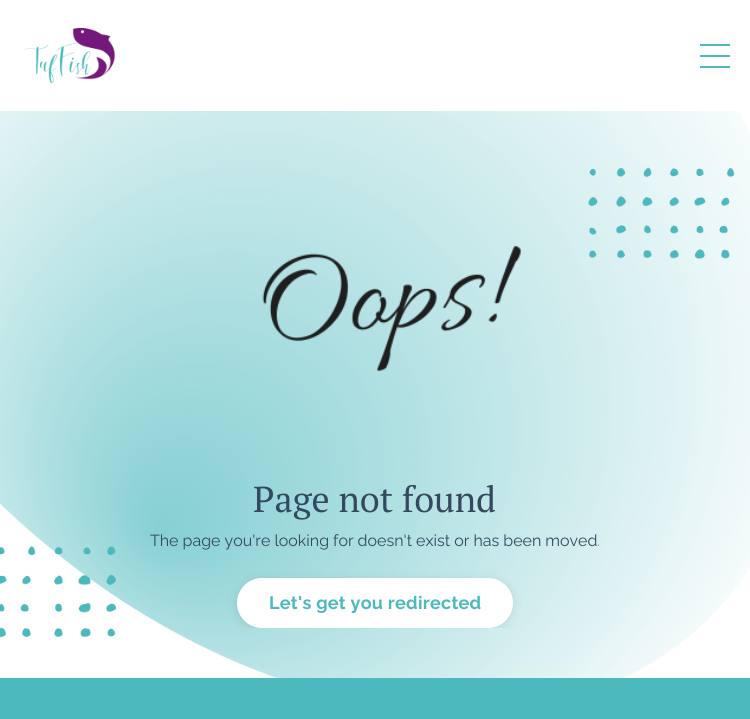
import math
import cairo



def draw_spaced(context, x, y, s, letter, word):
    context.move_to(x, y)
    for ch in s:
        context.show_text(ch)
        context.rel_move_to(letter + word * (ch == ' '), 0)


def rounded_rect(context, x, y, w, h, r):
    context.new_sub_path()
    for i, (u, v) in enumerate([(x + w - r, y + h - r), (x + r, y + h - r), (x + r, y + r), (x + w - r, y + r)]):
        context.arc(u, v, r, i * math.pi / 2, (i + 1) * math.pi / 2)
    context.close_path()


def draw_shadow(context, x, y, w, h, r, blur, alpha):
    context.push_group_with_content(cairo.Content.ALPHA)
    context.set_operator(cairo.Operator.SOURCE)
    for i in range(15, -16, -2):
        e = blur * i / 6
        if min(w, h) + 2 * e > 0:
            context.set_source_rgba(0, 0, 0, alpha * math.erfc((i - 1) / 8.5) / 2)
            rounded_rect(context, x - e, y - e, w + 2 * e, h + 2 * e, max(0, min(r + e + blur * .6, min(w, h) / 2 + e)))
            context.fill()
    context.mask(context.pop_group())


def draw_image(context, path, x, y, w, h):
    context.save()
    context.set_source_surface(cairo.ImageSurface.create_from_png(path), x, y)
    context.rectangle(x, y, w, h)
    context.fill()
    context.restore()


def draw(context):
    context.set_source_rgb(1, 1, 1)
    context.paint()
    draw_image(context, "images/1.png", 24, 27, 92, 57)
    context.set_source_rgb(76 / 255, 185 / 255, 190 / 255)
    context.rectangle(700, 44, 30, 2)
    context.fill()
    context.rectangle(700, 55, 30, 2)
    context.fill()
    context.rectangle(700, 66, 30, 2)
    context.fill()
    draw_image(context, "images/2.png", 0, 111, 750, 567)
    draw_image(context, "images/3.png", 262, 245, 260, 127)
    context.save()
    rounded_rect(context, 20, 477, 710, 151, 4)
    context.clip()
    context.set_source_rgb(0, 0, 0)
    draw_shadow(context, 237, 580, 276, 50, 25, 5, 0.1)
    context.restore()
    context.set_source_rgb(1, 1, 1)
    rounded_rect(context, 238, 579, 274, 48, 24)
    context.fill_preserve()
    context.stroke()
    context.set_source_rgb(76 / 255, 185 / 255, 190 / 255)
    context.rectangle(0, 678, 750, 41)
    context.fill()
    context.select_font_face("PT Serif")
    context.set_font_size(36)
    context.set_source_rgb(52 / 255, 73 / 255, 94 / 255)
    context.move_to(253, 512)
    context.show_text("Page not found")
    context.select_font_face("Raleway")
    context.set_font_size(16)
    context.move_to(150, 546)
    context.show_text("The page you're looking for doesn't exist or has been moved.")
    context.select_font_face("Raleway", cairo.FontSlant.NORMAL, cairo.FontWeight.BOLD)
    context.set_font_size(18)
    context.set_source_rgb(76 / 255, 185 / 255, 190 / 255)
    draw_spaced(context, 269, 609, "Let's get you redirected", 0.25, 0)


surface = cairo.ImageSurface(cairo.Format.RGB24, 750, 719)
context = cairo.Context(surface)
options = cairo.FontOptions()
options.set_hint_metrics(cairo.HintMetrics.OFF)
options.set_hint_style(cairo.HintStyle.NONE)
context.set_font_options(options)
context.set_miter_limit(4)
draw(context)
surface.write_to_png("out.png")
